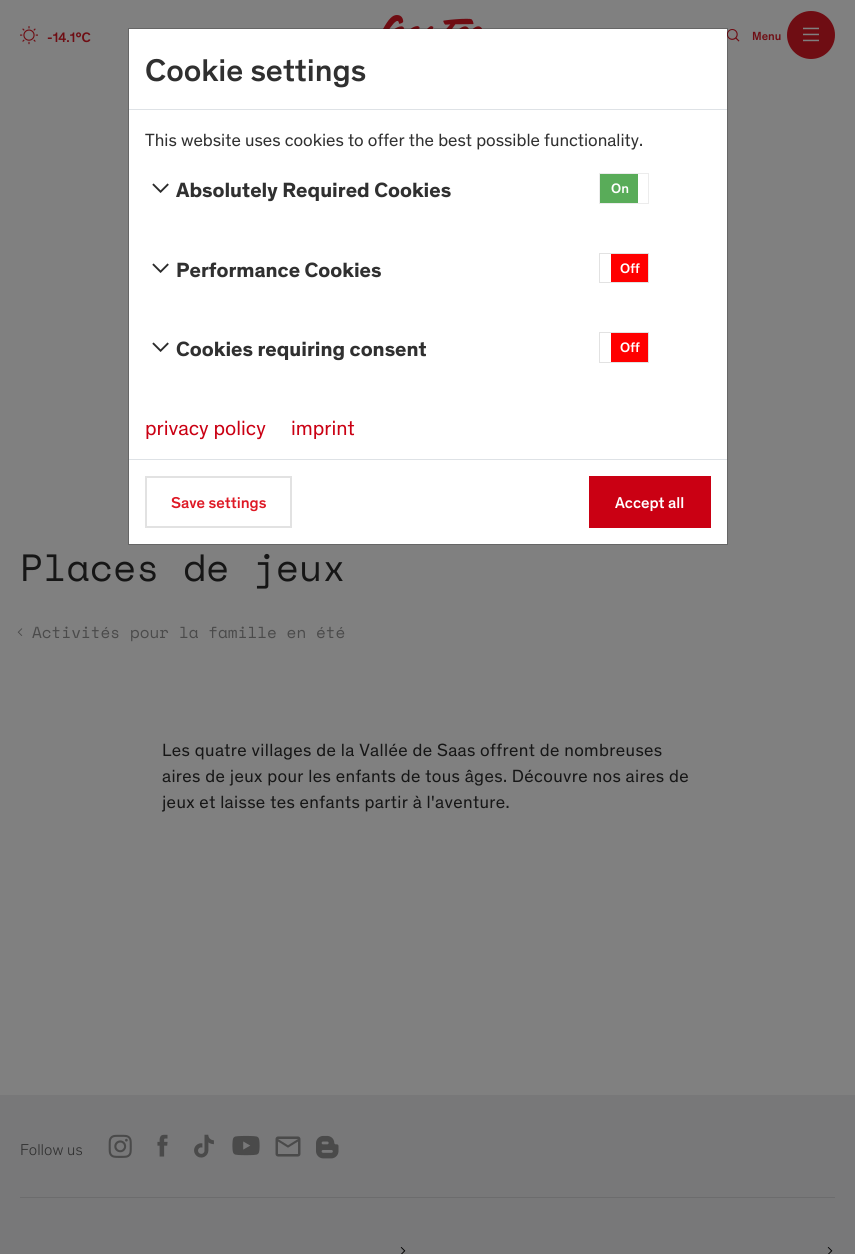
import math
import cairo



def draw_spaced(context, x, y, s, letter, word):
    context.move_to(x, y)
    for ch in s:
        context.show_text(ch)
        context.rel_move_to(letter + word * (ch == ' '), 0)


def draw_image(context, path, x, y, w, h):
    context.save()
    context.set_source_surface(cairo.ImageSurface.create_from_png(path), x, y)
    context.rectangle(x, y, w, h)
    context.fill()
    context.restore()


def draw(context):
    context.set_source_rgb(128 / 255, 128 / 255, 128 / 255)
    context.paint()
    draw_image(context, "images/1.png", 383, 15, 99, 14)
    draw_image(context, "images/2.png", 20, 26, 18, 19)
    draw_image(context, "images/3.png", 727, 29, 13, 13)
    context.set_source_rgb(111 / 255, 13 / 255, 19 / 255)
    context.arc(811, 35, 24, 0, 2 * math.pi)
    context.fill()
    draw_image(context, "images/4.png", 803, 27, 16, 15)
    draw_image(context, "images/5.png", 17, 628, 6, 8)
    context.set_source_rgb(120 / 255, 120 / 255, 121 / 255)
    context.rectangle(0, 1095, 855, 159)
    context.fill()
    draw_image(context, "images/6.png", 108, 1134, 24, 24)
    draw_image(context, "images/7.png", 157, 1134, 11, 23)
    draw_image(context, "images/8.png", 194, 1134, 20, 24)
    draw_image(context, "images/9.png", 232, 1135, 28, 21)
    draw_image(context, "images/10.png", 275, 1136, 26, 21)
    draw_image(context, "images/11.png", 316, 1135, 23, 24)
    context.set_source_rgb(108 / 255, 108 / 255, 109 / 255)
    context.rectangle(20, 1197, 815, 1)
    context.fill()
    draw_image(context, "images/12.png", 400, 1247, 6, 7)
    draw_image(context, "images/12.png", 827, 1247, 6, 7)
    context.set_source_rgb(1, 1, 1)
    context.rectangle(129, 29, 598, 515)
    context.fill()
    context.rectangle(128.5, 28.5, 599, 516)
    context.set_source_rgba(0, 0, 0, 0.2)
    context.set_line_width(1)
    context.stroke()
    context.set_source_rgb(222 / 255, 226 / 255, 230 / 255)
    context.rectangle(129, 109, 598, 1)
    context.fill()
    draw_image(context, "images/13.png", 152, 183, 17, 10)
    context.rectangle(599.5, 173.5, 49, 30)
    context.set_source_rgb(236 / 255, 236 / 255, 236 / 255)
    context.stroke()
    context.set_source_rgb(89 / 255, 172 / 255, 89 / 255)
    context.rectangle(600, 174, 38, 29)
    context.fill()
    draw_image(context, "images/13.png", 152, 263, 17, 10)
    context.rectangle(599.5, 253.5, 49, 29)
    context.set_source_rgb(226 / 255, 226 / 255, 226 / 255)
    context.stroke()
    context.set_source_rgb(1, 0, 0)
    context.rectangle(611, 254, 37, 28)
    context.fill()
    draw_image(context, "images/13.png", 152, 342, 17, 10)
    context.rectangle(599.5, 332.5, 49, 30)
    context.set_source_rgb(226 / 255, 226 / 255, 226 / 255)
    context.stroke()
    context.set_source_rgb(1, 0, 0)
    context.rectangle(611, 333, 37, 29)
    context.fill()
    context.set_source_rgb(222 / 255, 226 / 255, 230 / 255)
    context.rectangle(129, 459, 598, 1)
    context.fill()
    context.rectangle(146, 477, 145, 50)
    context.set_source_rgb(226 / 255, 226 / 255, 226 / 255)
    context.set_line_width(2)
    context.stroke()
    context.set_source_rgb(202 / 255, 0, 19 / 255)
    context.rectangle(589, 476, 122, 52)
    context.fill()
    context.select_font_face("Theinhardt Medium")
    context.set_font_size(14)
    context.set_source_rgb(111 / 255, 13 / 255, 19 / 255)
    context.move_to(47, 42)
    context.show_text("-14.1°C")
    context.set_font_size(12)
    context.move_to(752, 40)
    context.show_text("Menu")
    context.select_font_face("Space Mono")
    context.set_font_size(38)
    context.set_source_rgb(22 / 255, 22 / 255, 22 / 255)
    context.move_to(20, 581)
    context.show_text("Places de jeux")
    context.set_font_size(16)
    context.set_source_rgb(74 / 255, 74 / 255, 74 / 255)
    context.move_to(32, 638)
    context.show_text("Activités pour la famille en été")
    context.select_font_face("Theinhardt")
    context.set_font_size(18)
    context.set_source_rgb(22 / 255, 22 / 255, 22 / 255)
    draw_spaced(context, 162, 756, "Les quatre villages de la Vallée de Saas offrent de nombreuses", 0.35, 0)
    draw_spaced(context, 162, 782, "aires de jeux pour les enfants de tous âges. Découvre nos aires de", 0.35, 0)
    draw_spaced(context, 162, 808, "jeux et laisse tes enfants partir à l'aventure.", 0.35, 0)
    context.select_font_face("Theinhardt Light")
    context.set_font_size(16)
    context.set_source_rgb(48 / 255, 48 / 255, 48 / 255)
    context.move_to(20, 1155)
    context.show_text("Follow us")
    context.select_font_face("Theinhardt Medium")
    context.set_font_size(32)
    context.move_to(145, 81)
    context.show_text("Cookie settings")
    context.select_font_face("Theinhardt")
    context.set_font_size(18)
    context.move_to(145, 146)
    context.show_text("This website uses cookies to offer the best possible functionality.")
    context.select_font_face("Theinhardt", cairo.FontSlant.NORMAL, cairo.FontWeight.BOLD)
    context.set_font_size(21)
    context.move_to(176, 197)
    context.show_text("Absolutely Required Cookies")
    context.select_font_face("Theinhardt Medium")
    context.set_font_size(14)
    context.set_source_rgb(1, 1, 1)
    context.move_to(611, 193)
    context.show_text("On")
    context.select_font_face("Theinhardt", cairo.FontSlant.NORMAL, cairo.FontWeight.BOLD)
    context.set_font_size(21)
    context.set_source_rgb(48 / 255, 48 / 255, 48 / 255)
    context.move_to(176, 277)
    context.show_text("Performance Cookies")
    context.select_font_face("Theinhardt Medium")
    context.set_font_size(14)
    context.set_source_rgb(1, 1, 1)
    context.move_to(620, 273)
    context.show_text("Off")
    context.select_font_face("Theinhardt", cairo.FontSlant.NORMAL, cairo.FontWeight.BOLD)
    context.set_font_size(21)
    context.set_source_rgb(48 / 255, 48 / 255, 48 / 255)
    context.move_to(176, 356)
    context.show_text("Cookies requiring consent")
    context.select_font_face("Theinhardt Medium")
    context.set_font_size(14)
    context.set_source_rgb(1, 1, 1)
    context.move_to(620, 352)
    context.show_text("Off")
    context.select_font_face("Theinhardt")
    context.set_font_size(21)
    context.set_source_rgb(202 / 255, 0, 19 / 255)
    context.move_to(145, 435)
    context.show_text("privacy policy")
    context.move_to(291, 435)
    context.show_text("imprint")
    context.select_font_face("Theinhardt Medium")
    context.set_font_size(16)
    context.set_source_rgb(222 / 255, 25 / 255, 37 / 255)
    context.move_to(171, 508)
    context.show_text("Save settings")
    context.set_source_rgb(1, 1, 1)
    context.move_to(615, 508)
    context.show_text("Accept all")


surface = cairo.ImageSurface(cairo.Format.RGB24, 855, 1254)
context = cairo.Context(surface)
options = cairo.FontOptions()
options.set_hint_metrics(cairo.HintMetrics.OFF)
options.set_hint_style(cairo.HintStyle.NONE)
context.set_font_options(options)
context.set_miter_limit(4)
draw(context)
surface.write_to_png("out.png")
